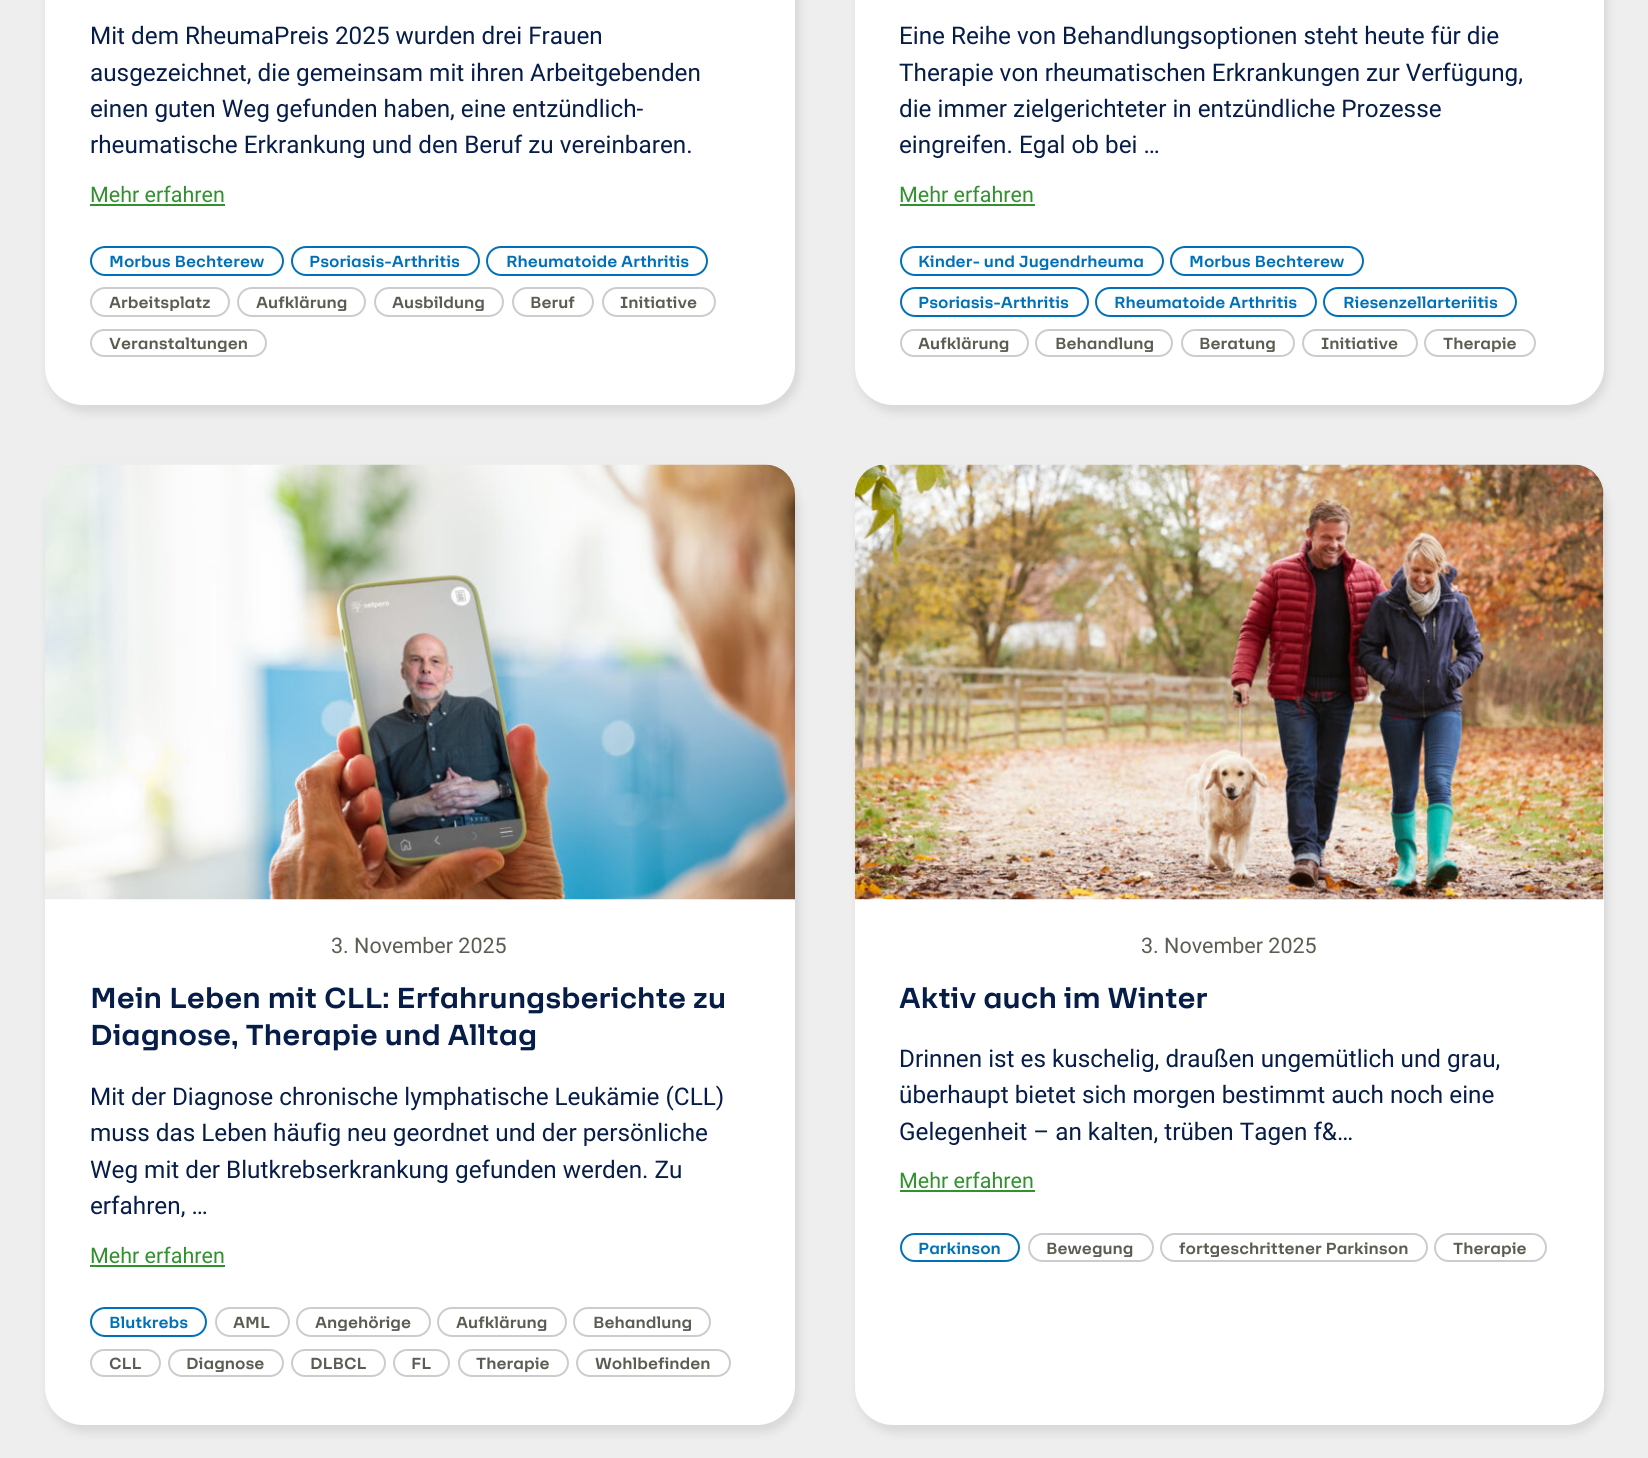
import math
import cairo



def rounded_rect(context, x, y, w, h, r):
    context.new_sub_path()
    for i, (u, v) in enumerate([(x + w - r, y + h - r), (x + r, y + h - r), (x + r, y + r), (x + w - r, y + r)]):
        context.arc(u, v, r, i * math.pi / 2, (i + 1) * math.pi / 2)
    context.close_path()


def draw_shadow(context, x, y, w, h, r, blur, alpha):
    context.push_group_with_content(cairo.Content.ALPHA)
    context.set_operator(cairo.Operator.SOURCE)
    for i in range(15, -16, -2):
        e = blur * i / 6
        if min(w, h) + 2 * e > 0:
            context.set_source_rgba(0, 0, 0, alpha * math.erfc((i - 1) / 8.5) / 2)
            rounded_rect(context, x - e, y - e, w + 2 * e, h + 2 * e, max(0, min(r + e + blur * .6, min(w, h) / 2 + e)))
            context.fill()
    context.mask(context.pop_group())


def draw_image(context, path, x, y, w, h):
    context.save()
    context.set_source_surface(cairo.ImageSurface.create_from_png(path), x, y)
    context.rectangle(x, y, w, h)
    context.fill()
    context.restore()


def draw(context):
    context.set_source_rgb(238 / 255, 238 / 255, 238 / 255)
    context.paint()
    context.set_source_rgb(0, 0, 21 / 255)
    draw_shadow(context, 47, -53, 753, 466, 39, 4.5, 0.09)
    context.set_source_rgb(1, 1, 1)
    rounded_rect(context, 45, -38, 750, 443, 38)
    context.fill()
    context.set_source_rgb(50 / 255, 145 / 255, 47 / 255)
    context.rectangle(90, 204, 135, 2)
    context.fill()
    rounded_rect(context, 91, 247, 192, 28, 14)
    context.set_source_rgb(0, 113 / 255, 185 / 255)
    context.stroke()
    rounded_rect(context, 292, 247, 187, 28, 14)
    context.stroke()
    rounded_rect(context, 487, 247, 220, 28, 14)
    context.stroke()
    rounded_rect(context, 91, 288, 138, 28, 14)
    context.set_source_rgb(204 / 255, 204 / 255, 204 / 255)
    context.stroke()
    rounded_rect(context, 238, 288, 127, 28, 14)
    context.stroke()
    rounded_rect(context, 375, 288, 128, 28, 14)
    context.stroke()
    rounded_rect(context, 513, 288, 80, 28, 14)
    context.stroke()
    rounded_rect(context, 603, 288, 112, 28, 14)
    context.stroke()
    rounded_rect(context, 91, 330, 175, 26, 13)
    context.stroke()
    context.set_source_rgb(0, 0, 21 / 255)
    draw_shadow(context, 857, -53, 751, 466, 39, 4.5, 0.09)
    context.set_source_rgb(1, 1, 1)
    rounded_rect(context, 855, -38, 749, 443, 38)
    context.fill()
    context.set_source_rgb(50 / 255, 145 / 255, 47 / 255)
    context.rectangle(900, 204, 135, 2)
    context.fill()
    rounded_rect(context, 901, 247, 262, 28, 14)
    context.set_source_rgb(0, 113 / 255, 185 / 255)
    context.stroke()
    rounded_rect(context, 1171, 247, 192, 28, 14)
    context.stroke()
    rounded_rect(context, 901, 288, 187, 28, 14)
    context.stroke()
    rounded_rect(context, 1096, 288, 220, 28, 14)
    context.stroke()
    rounded_rect(context, 1324, 288, 192, 28, 14)
    context.stroke()
    rounded_rect(context, 901, 330, 127, 26, 13)
    context.set_source_rgb(204 / 255, 204 / 255, 204 / 255)
    context.stroke()
    rounded_rect(context, 1036, 330, 136, 26, 13)
    context.stroke()
    rounded_rect(context, 1182, 330, 112, 26, 13)
    context.stroke()
    rounded_rect(context, 1303, 330, 114, 26, 13)
    context.stroke()
    rounded_rect(context, 1425, 330, 110, 26, 13)
    context.stroke()
    context.set_source_rgb(0, 0, 21 / 255)
    draw_shadow(context, 47, 470, 753, 963, 39, 4.5, 0.09)
    context.set_source_rgb(1, 1, 1)
    rounded_rect(context, 45, 465, 750, 960, 38)
    context.fill()
    draw_image(context, "images/1.png", 45, 464, 750, 436)
    context.set_source_rgb(50 / 255, 145 / 255, 47 / 255)
    context.rectangle(90, 1265, 135, 2)
    context.fill()
    rounded_rect(context, 91, 1308, 115, 28, 14)
    context.set_source_rgb(0, 113 / 255, 185 / 255)
    context.stroke()
    rounded_rect(context, 216, 1308, 73, 28, 14)
    context.set_source_rgb(204 / 255, 204 / 255, 204 / 255)
    context.stroke()
    rounded_rect(context, 297, 1308, 133, 28, 14)
    context.stroke()
    rounded_rect(context, 438, 1308, 128, 28, 14)
    context.stroke()
    rounded_rect(context, 574, 1308, 136, 28, 14)
    context.stroke()
    rounded_rect(context, 91, 1350, 69, 26, 13)
    context.stroke()
    rounded_rect(context, 169, 1350, 114, 26, 13)
    context.stroke()
    rounded_rect(context, 292, 1350, 93, 26, 13)
    context.stroke()
    rounded_rect(context, 394, 1350, 55, 26, 13)
    context.stroke()
    rounded_rect(context, 459, 1350, 109, 26, 13)
    context.stroke()
    rounded_rect(context, 577, 1350, 153, 26, 13)
    context.stroke()
    context.set_source_rgb(0, 0, 21 / 255)
    draw_shadow(context, 857, 470, 751, 963, 39, 4.5, 0.09)
    context.set_source_rgb(1, 1, 1)
    rounded_rect(context, 855, 465, 749, 960, 38)
    context.fill()
    draw_image(context, "images/2.png", 855, 464, 749, 436)
    context.set_source_rgb(50 / 255, 145 / 255, 47 / 255)
    context.rectangle(900, 1190, 135, 2)
    context.fill()
    rounded_rect(context, 901, 1234, 118, 27, 13.5)
    context.set_source_rgb(0, 113 / 255, 185 / 255)
    context.stroke()
    rounded_rect(context, 1029, 1234, 124, 27, 13.5)
    context.set_source_rgb(204 / 255, 204 / 255, 204 / 255)
    context.stroke()
    rounded_rect(context, 1161, 1234, 266, 27, 13.5)
    context.stroke()
    rounded_rect(context, 1435, 1234, 111, 27, 13.5)
    context.stroke()
    context.select_font_face("Roboto")
    context.set_font_size(24.3)
    context.set_source_rgb(7 / 255, 29 / 255, 73 / 255)
    context.move_to(90, 44)
    context.show_text("Mit dem RheumaPreis 2025 wurden drei Frauen")
    context.move_to(90, 81)
    context.show_text("ausgezeichnet, die gemeinsam mit ihren Arbeitgebenden")
    context.move_to(90, 117)
    context.show_text("einen guten Weg gefunden haben, eine entzündlich-")
    context.move_to(90, 153)
    context.show_text("rheumatische Erkrankung und den Beruf zu vereinbaren.")
    context.set_font_size(21.5)
    context.set_source_rgb(50 / 255, 145 / 255, 47 / 255)
    context.move_to(90, 202)
    context.show_text("Mehr erfahren")
    context.select_font_face("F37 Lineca", cairo.FontSlant.NORMAL, cairo.FontWeight.BOLD)
    context.set_font_size(17.5)
    context.set_source_rgb(0, 113 / 255, 185 / 255)
    context.move_to(109, 267)
    context.show_text("Morbus Bechterew")
    context.move_to(309, 267)
    context.show_text("Psoriasis-Arthritis")
    context.move_to(506, 267)
    context.show_text("Rheumatoide Arthritis")
    context.set_source_rgb(92 / 255, 93 / 255, 82 / 255)
    context.move_to(109, 308)
    context.show_text("Arbeitsplatz")
    context.move_to(256, 308)
    context.show_text("Aufklärung")
    context.move_to(392, 308)
    context.show_text("Ausbildung")
    context.move_to(530, 308)
    context.show_text("Beruf")
    context.move_to(620, 308)
    context.show_text("Initiative")
    context.move_to(109, 349)
    context.show_text("Veranstaltungen")
    context.select_font_face("Roboto")
    context.set_font_size(24.3)
    context.set_source_rgb(7 / 255, 29 / 255, 73 / 255)
    context.move_to(899, 44)
    context.show_text("Eine Reihe von Behandlungsoptionen steht heute für die")
    context.move_to(899, 81)
    context.show_text("Therapie von rheumatischen Erkrankungen zur Verfügung,")
    context.move_to(899, 117)
    context.show_text("die immer zielgerichteter in entzündliche Prozesse")
    context.move_to(899, 153)
    context.show_text("eingreifen. Egal ob bei …")
    context.set_font_size(21.5)
    context.set_source_rgb(50 / 255, 145 / 255, 47 / 255)
    context.move_to(899, 202)
    context.show_text("Mehr erfahren")
    context.select_font_face("F37 Lineca", cairo.FontSlant.NORMAL, cairo.FontWeight.BOLD)
    context.set_font_size(17.5)
    context.set_source_rgb(0, 113 / 255, 185 / 255)
    context.move_to(918, 267)
    context.show_text("Kinder- und Jugendrheuma")
    context.move_to(1189, 267)
    context.show_text("Morbus Bechterew")
    context.move_to(918, 308)
    context.show_text("Psoriasis-Arthritis")
    context.move_to(1114, 308)
    context.show_text("Rheumatoide Arthritis")
    context.move_to(1343, 308)
    context.show_text("Riesenzellarteriitis")
    context.set_source_rgb(92 / 255, 93 / 255, 82 / 255)
    context.move_to(918, 349)
    context.show_text("Aufklärung")
    context.move_to(1055, 349)
    context.show_text("Behandlung")
    context.move_to(1199, 349)
    context.show_text("Beratung")
    context.move_to(1321, 349)
    context.show_text("Initiative")
    context.move_to(1443, 349)
    context.show_text("Therapie")
    context.select_font_face("Roboto")
    context.set_font_size(21.5)
    context.move_to(331, 953)
    context.show_text("3. November 2025")
    context.select_font_face("F37 Lineca", cairo.FontSlant.NORMAL, cairo.FontWeight.BOLD)
    context.set_font_size(31.5)
    context.set_source_rgb(7 / 255, 29 / 255, 73 / 255)
    context.move_to(90, 1008)
    context.show_text("Mein Leben mit CLL: Erfahrungsberichte zu")
    context.move_to(90, 1045)
    context.show_text("Diagnose, Therapie und Alltag")
    context.select_font_face("Roboto")
    context.set_font_size(24.3)
    context.move_to(90, 1105)
    context.show_text("Mit der Diagnose chronische lymphatische Leukämie (CLL)")
    context.move_to(90, 1141)
    context.show_text("muss das Leben häufig neu geordnet und der persönliche")
    context.move_to(90, 1178)
    context.show_text("Weg mit der Blutkrebserkrankung gefunden werden. Zu")
    context.move_to(90, 1214)
    context.show_text("erfahren, …")
    context.set_font_size(21.5)
    context.set_source_rgb(50 / 255, 145 / 255, 47 / 255)
    context.move_to(90, 1263)
    context.show_text("Mehr erfahren")
    context.select_font_face("F37 Lineca", cairo.FontSlant.NORMAL, cairo.FontWeight.BOLD)
    context.set_font_size(17.5)
    context.set_source_rgb(0, 113 / 255, 185 / 255)
    context.move_to(109, 1328)
    context.show_text("Blutkrebs")
    context.set_source_rgb(92 / 255, 93 / 255, 82 / 255)
    context.move_to(233, 1328)
    context.show_text("AML")
    context.move_to(315, 1328)
    context.show_text("Angehörige")
    context.move_to(456, 1328)
    context.show_text("Aufklärung")
    context.move_to(593, 1328)
    context.show_text("Behandlung")
    context.move_to(109, 1369)
    context.show_text("CLL")
    context.move_to(186, 1369)
    context.show_text("Diagnose")
    context.move_to(310, 1369)
    context.show_text("DLBCL")
    context.move_to(411, 1369)
    context.show_text("FL")
    context.move_to(476, 1369)
    context.show_text("Therapie")
    context.move_to(595, 1369)
    context.show_text("Wohlbefinden")
    context.select_font_face("Roboto")
    context.set_font_size(21.5)
    context.move_to(1141, 953)
    context.show_text("3. November 2025")
    context.select_font_face("F37 Lineca", cairo.FontSlant.NORMAL, cairo.FontWeight.BOLD)
    context.set_font_size(31.5)
    context.set_source_rgb(7 / 255, 29 / 255, 73 / 255)
    context.move_to(899, 1008)
    context.show_text("Aktiv auch im Winter")
    context.select_font_face("Roboto")
    context.set_font_size(24.3)
    context.move_to(899, 1067)
    context.show_text("Drinnen ist es kuschelig, draußen ungemütlich und grau,")
    context.move_to(899, 1103)
    context.show_text("überhaupt bietet sich morgen bestimmt auch noch eine")
    context.move_to(899, 1140)
    context.show_text("Gelegenheit – an kalten, trüben Tagen f&…")
    context.set_font_size(21.5)
    context.set_source_rgb(50 / 255, 145 / 255, 47 / 255)
    context.move_to(899, 1188)
    context.show_text("Mehr erfahren")
    context.select_font_face("F37 Lineca", cairo.FontSlant.NORMAL, cairo.FontWeight.BOLD)
    context.set_font_size(17.5)
    context.set_source_rgb(0, 113 / 255, 185 / 255)
    context.move_to(918, 1254)
    context.show_text("Parkinson")
    context.set_source_rgb(92 / 255, 93 / 255, 82 / 255)
    context.move_to(1046, 1254)
    context.show_text("Bewegung")
    context.move_to(1179, 1254)
    context.show_text("fortgeschrittener Parkinson")
    context.move_to(1453, 1254)
    context.show_text("Therapie")


surface = cairo.ImageSurface(cairo.Format.RGB24, 1648, 1458)
context = cairo.Context(surface)
options = cairo.FontOptions()
options.set_hint_metrics(cairo.HintMetrics.OFF)
options.set_hint_style(cairo.HintStyle.NONE)
context.set_font_options(options)
context.set_miter_limit(4)
draw(context)
surface.write_to_png("out.png")
